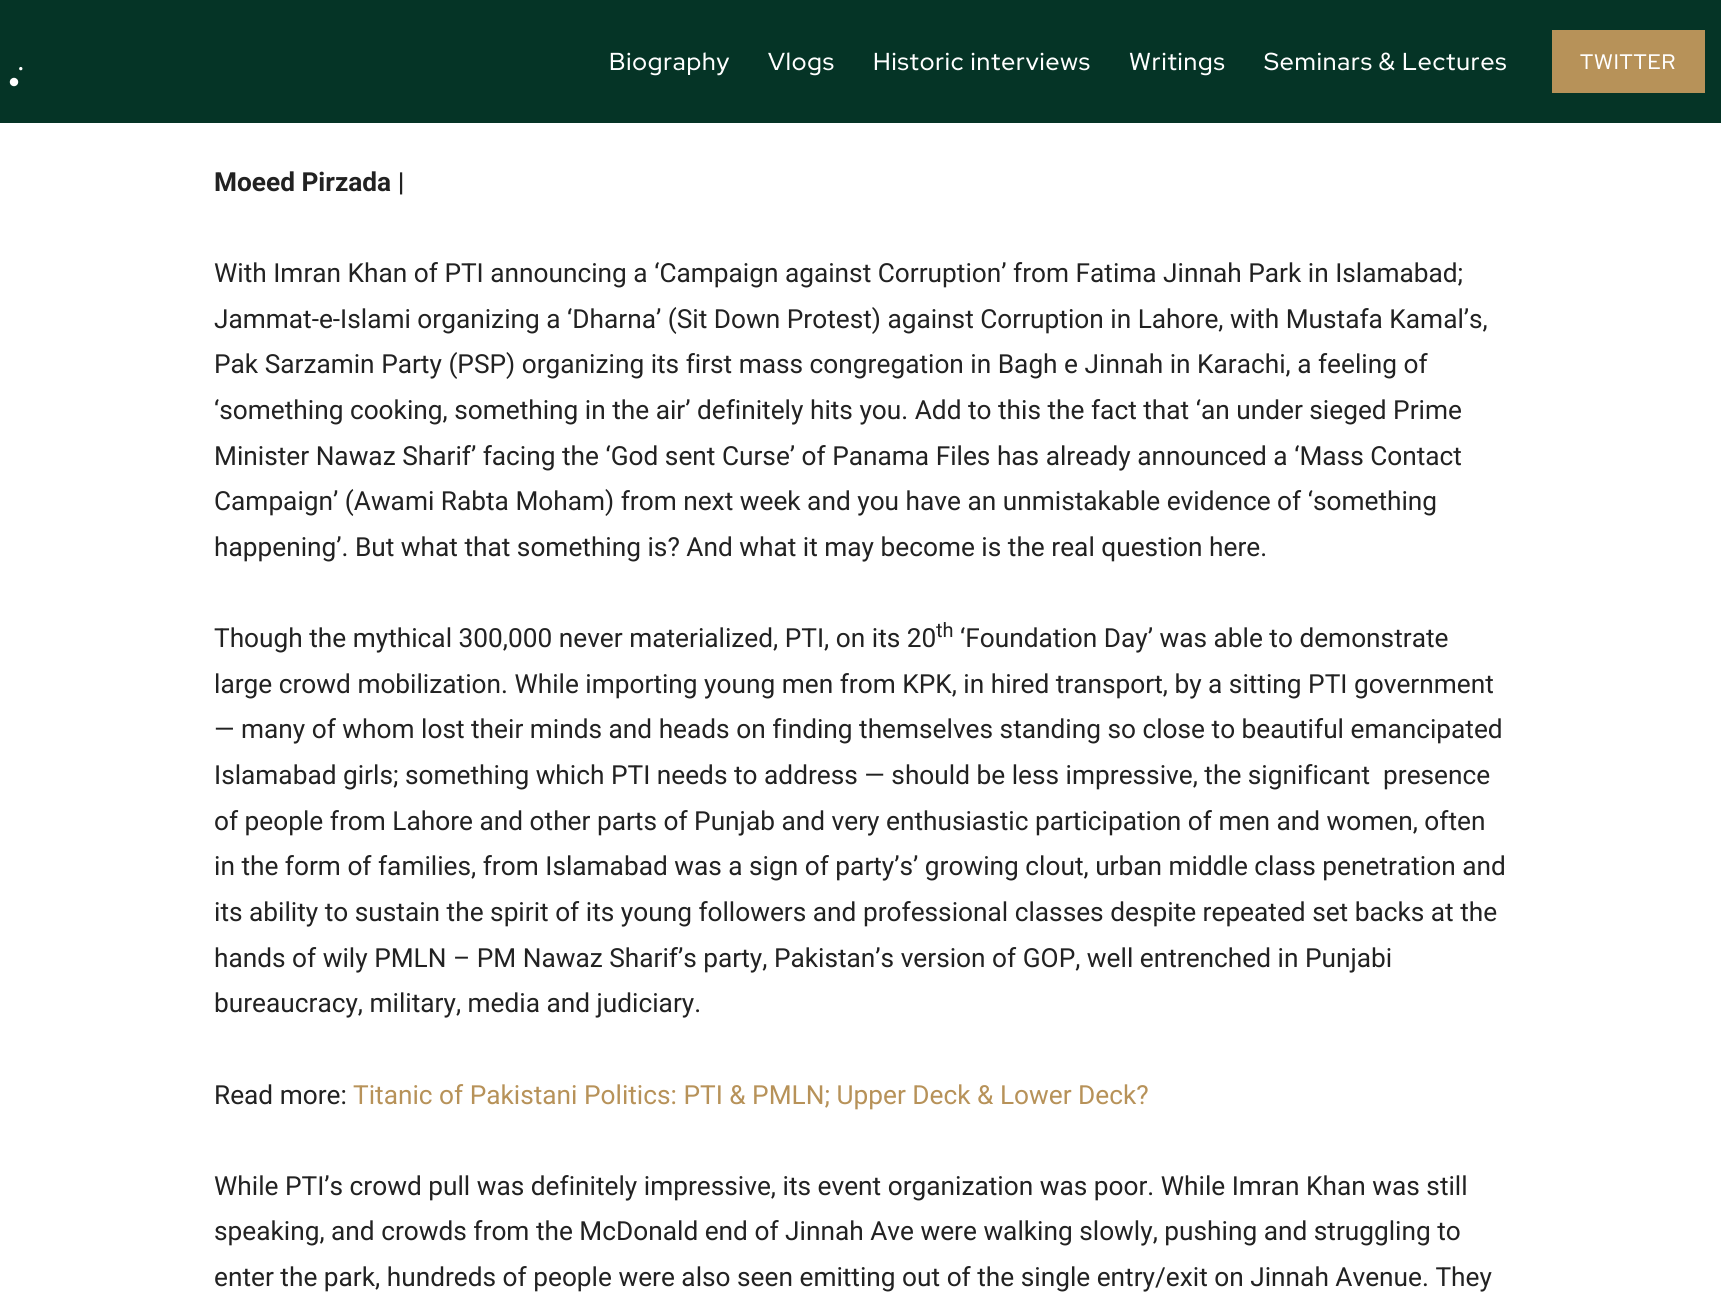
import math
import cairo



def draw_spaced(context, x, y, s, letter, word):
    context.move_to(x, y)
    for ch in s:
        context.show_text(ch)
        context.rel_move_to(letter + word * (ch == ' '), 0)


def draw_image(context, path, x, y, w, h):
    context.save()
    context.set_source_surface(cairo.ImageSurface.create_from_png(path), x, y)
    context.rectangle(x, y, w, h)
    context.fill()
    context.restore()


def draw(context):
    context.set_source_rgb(1, 1, 1)
    context.paint()
    context.set_source_rgb(5 / 255, 52 / 255, 38 / 255)
    context.rectangle(0, 0, 1721, 123)
    context.fill()
    draw_image(context, "images/1.png", 9, 77, 10, 10)
    context.set_source_rgb(183 / 255, 146 / 255, 89 / 255)
    context.rectangle(1552, 30, 153, 63)
    context.fill()
    context.select_font_face("Gilda Display")
    context.set_font_size(32)
    context.set_source_rgb(1, 1, 1)
    context.move_to(18, 70)
    context.show_text(".")
    context.select_font_face("Red Hat Display Medium")
    context.set_font_size(24.5)
    draw_spaced(context, 609, 70, "Biography", 0.9, 0)
    draw_spaced(context, 768, 70, "Vlogs", 0.9, 0)
    draw_spaced(context, 873, 70, "Historic interviews", 0.9, 0)
    draw_spaced(context, 1129, 70, "Writings", 0.9, 0)
    draw_spaced(context, 1264, 70, "Seminars & Lectures", 0.9, 0)
    context.set_font_size(21)
    draw_spaced(context, 1580, 69, "TWITTER", 0.9, 0)
    context.select_font_face("Roboto", cairo.FontSlant.NORMAL, cairo.FontWeight.BOLD)
    context.set_font_size(26.25)
    context.set_source_rgb(34 / 255, 34 / 255, 34 / 255)
    context.move_to(214, 191)
    context.show_text("Moeed Pirzada |")
    context.select_font_face("Roboto")
    context.move_to(214, 282)
    context.show_text("With Imran Khan of PTI announcing a ‘Campaign against Corruption’ from Fatima Jinnah Park in Islamabad;")
    context.move_to(214, 328)
    context.show_text("Jammat-e-Islami organizing a ‘Dharna’ (Sit Down Protest) against Corruption in Lahore, with Mustafa Kamal’s,")
    context.move_to(214, 373)
    context.show_text("Pak Sarzamin Party (PSP) organizing its first mass congregation in Bagh e Jinnah in Karachi, a feeling of")
    context.move_to(214, 419)
    context.show_text("‘something cooking, something in the air’ definitely hits you. Add to this the fact that ‘an under sieged Prime")
    context.move_to(214, 465)
    context.show_text("Minister Nawaz Sharif’ facing the ‘God sent Curse’ of Panama Files has already announced a ‘Mass Contact")
    context.move_to(214, 510)
    context.show_text("Campaign’ (Awami Rabta Moham) from next week and you have an unmistakable evidence of ‘something")
    context.move_to(214, 556)
    context.show_text("happening’. But what that something is? And what it may become is the real question here.")
    context.move_to(214, 647)
    context.show_text("Though the mythical 300,000 never materialized, PTI, on its 20")
    context.set_font_size(20)
    context.move_to(936, 637)
    context.show_text("th")
    context.set_font_size(26.25)
    context.move_to(960, 647)
    context.show_text("‘Foundation Day’ was able to demonstrate")
    context.move_to(214, 693)
    context.show_text("large crowd mobilization. While importing young men from KPK, in hired transport, by a sitting PTI government")
    context.move_to(214, 738)
    context.show_text("— many of whom lost their minds and heads on finding themselves standing so close to beautiful emancipated")
    context.move_to(214, 784)
    context.show_text("Islamabad girls; something which PTI needs to address — should be less impressive, the significant  presence")
    context.move_to(214, 830)
    context.show_text("of people from Lahore and other parts of Punjab and very enthusiastic participation of men and women, often")
    context.move_to(214, 875)
    context.show_text("in the form of families, from Islamabad was a sign of party’s’ growing clout, urban middle class penetration and")
    context.move_to(214, 921)
    context.show_text("its ability to sustain the spirit of its young followers and professional classes despite repeated set backs at the")
    context.move_to(214, 967)
    context.show_text("hands of wily PMLN – PM Nawaz Sharif’s party, Pakistan’s version of GOP, well entrenched in Punjabi")
    context.move_to(214, 1012)
    context.show_text("bureaucracy, military, media and judiciary.")
    context.move_to(214, 1104)
    context.show_text("Read more:")
    context.set_source_rgb(183 / 255, 146 / 255, 89 / 255)
    context.move_to(353, 1104)
    context.show_text("Titanic of Pakistani Politics: PTI & PMLN; Upper Deck & Lower Deck?")
    context.set_source_rgb(34 / 255, 34 / 255, 34 / 255)
    context.move_to(214, 1195)
    context.show_text("While PTI’s crowd pull was definitely impressive, its event organization was poor. While Imran Khan was still")
    context.move_to(214, 1240)
    context.show_text("speaking, and crowds from the McDonald end of Jinnah Ave were walking slowly, pushing and struggling to")
    context.move_to(214, 1286)
    context.show_text("enter the park, hundreds of people were also seen emitting out of the single entry/exit on Jinnah Avenue. They")


surface = cairo.ImageSurface(cairo.Format.RGB24, 1721, 1309)
context = cairo.Context(surface)
options = cairo.FontOptions()
options.set_hint_metrics(cairo.HintMetrics.OFF)
options.set_hint_style(cairo.HintStyle.NONE)
context.set_font_options(options)
context.set_miter_limit(4)
draw(context)
surface.write_to_png("out.png")
